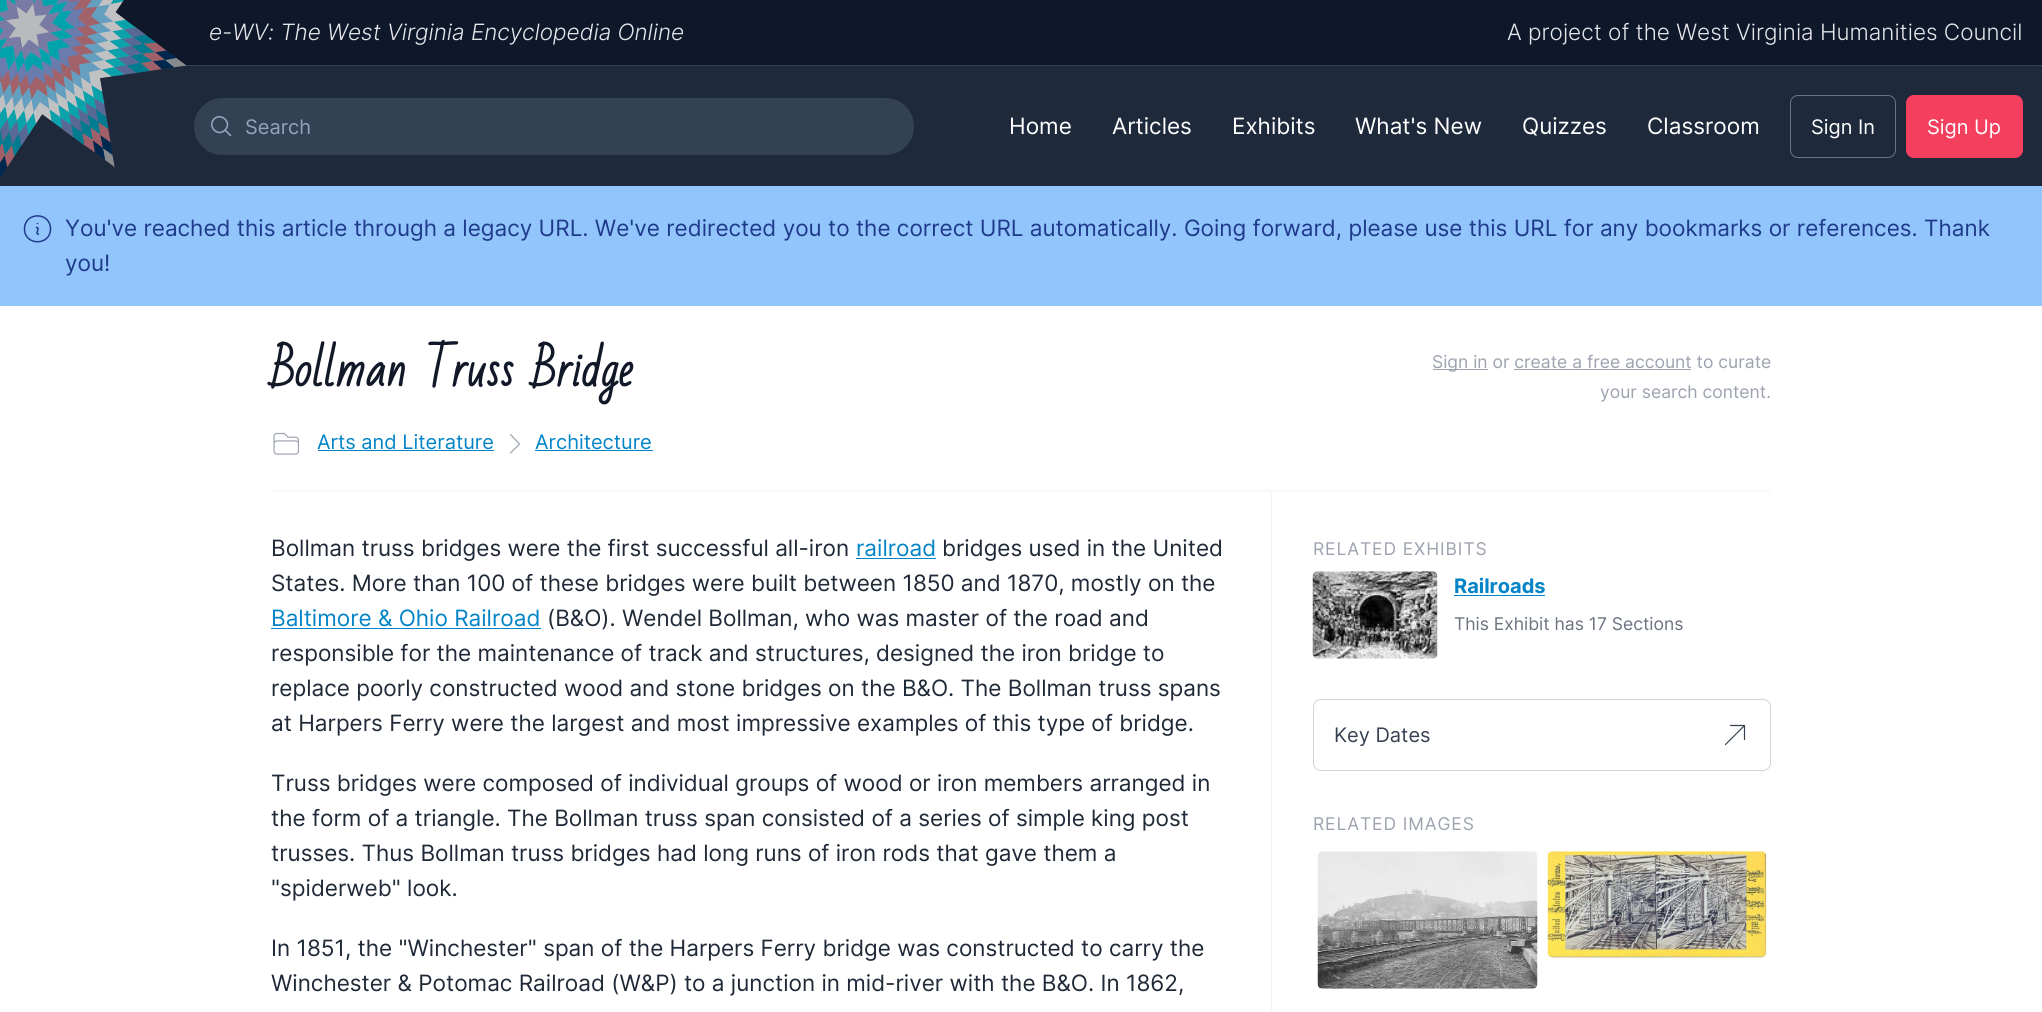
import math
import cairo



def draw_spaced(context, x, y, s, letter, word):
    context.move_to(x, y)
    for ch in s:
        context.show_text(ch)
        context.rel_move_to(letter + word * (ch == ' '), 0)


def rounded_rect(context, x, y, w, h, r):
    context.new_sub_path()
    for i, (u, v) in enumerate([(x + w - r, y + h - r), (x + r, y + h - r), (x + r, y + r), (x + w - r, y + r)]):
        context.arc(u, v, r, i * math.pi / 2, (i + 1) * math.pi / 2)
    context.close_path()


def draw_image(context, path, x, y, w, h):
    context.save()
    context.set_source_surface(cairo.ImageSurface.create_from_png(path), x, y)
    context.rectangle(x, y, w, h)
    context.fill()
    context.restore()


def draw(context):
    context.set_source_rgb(30 / 255, 41 / 255, 59 / 255)
    context.paint()
    context.set_source_rgb(15 / 255, 23 / 255, 42 / 255)
    context.rectangle(115, 0, 1927, 65)
    context.fill()
    context.set_source_rgb(51 / 255, 65 / 255, 85 / 255)
    context.rectangle(183, 65, 1859, 1)
    context.fill()
    draw_image(context, "images/1.png", 0, 0, 187, 178)
    rounded_rect(context, 194.5, 98.5, 719, 56, 28)
    context.fill_preserve()
    context.set_line_width(1)
    context.stroke()
    context.new_path()
    context.move_to(230.5, 135.5)
    context.line_to(225, 130)
    context.move_to(225, 130)
    context.curve_to(232.5, 123, 221.5, 112, 214, 119)
    context.curve_to(207, 126.5, 218, 137.5, 225, 130)
    context.close_path()
    context.set_source_rgb(148 / 255, 163 / 255, 184 / 255)
    context.set_line_width(1.6)
    context.set_line_cap(cairo.LineCap.ROUND)
    context.set_line_join(cairo.LineJoin.ROUND)
    context.stroke()
    rounded_rect(context, 1790.5, 95.5, 105, 62, 7.5)
    context.set_source_rgb(100 / 255, 116 / 255, 139 / 255)
    context.set_line_width(1)
    context.set_line_cap(cairo.LineCap.BUTT)
    context.set_line_join(cairo.LineJoin.MITER)
    context.stroke()
    context.set_source_rgb(244 / 255, 63 / 255, 94 / 255)
    rounded_rect(context, 1906, 95, 117, 63, 8)
    context.fill()
    context.set_source_rgb(147 / 255, 197 / 255, 253 / 255)
    context.rectangle(0, 186, 2042, 120)
    context.fill()
    context.new_path()
    context.move_to(36.5, 227.5)
    context.line_to(37.5, 227.5)
    context.curve_to(39.5, 229, 35.5, 233, 37.5, 234)
    context.line_to(38.5, 234)
    context.move_to(50.5, 229)
    context.curve_to(50.5, 246, 24.5, 246, 24.5, 229)
    context.curve_to(24.5, 211.5, 50.5, 211.5, 50.5, 229)
    context.close_path()
    context.move_to(37.5, 223.5)
    context.line_to(37.5, 223.5)
    context.close_path()
    context.set_source_rgb(30 / 255, 58 / 255, 138 / 255)
    context.set_line_width(1.5)
    context.set_line_cap(cairo.LineCap.ROUND)
    context.set_line_join(cairo.LineJoin.ROUND)
    context.stroke()
    context.set_source_rgb(1, 1, 1)
    context.rectangle(0, 306, 2042, 706)
    context.fill()
    context.set_source_rgb(243 / 255, 244 / 255, 246 / 255)
    context.rectangle(1271, 491, 1, 521)
    context.fill()
    context.set_source_rgb(249 / 255, 250 / 255, 251 / 255)
    context.rectangle(271, 489, 1500, 3)
    context.fill()
    draw_image(context, "images/2.png", 273, 432, 26, 23)
    context.set_source_rgb(2 / 255, 132 / 255, 199 / 255)
    context.rectangle(318, 450, 176, 1)
    context.fill()
    context.new_path()
    context.move_to(510.5, 434.5)
    context.line_to(519.5, 444)
    context.line_to(510.5, 453)
    context.set_source_rgb(156 / 255, 163 / 255, 175 / 255)
    context.set_line_width(1.2)
    context.stroke()
    context.set_source_rgb(2 / 255, 132 / 255, 199 / 255)
    context.rectangle(535, 450, 118, 1)
    context.fill()
    context.set_source_rgb(156 / 255, 163 / 255, 175 / 255)
    context.rectangle(1433, 369, 55, 1)
    context.fill()
    context.rectangle(1514, 369, 177, 1)
    context.fill()
    context.set_source_rgb(2 / 255, 132 / 255, 199 / 255)
    context.rectangle(856, 558, 80, 1)
    context.fill()
    context.rectangle(271, 628, 270, 1)
    context.fill()
    draw_image(context, "images/3.png", 1312, 571, 126, 88)
    context.rectangle(1454, 595, 91, 1)
    context.fill()
    rounded_rect(context, 1313.5, 699.5, 457, 71, 7.5)
    context.set_source_rgb(209 / 255, 213 / 255, 219 / 255)
    context.set_line_width(1)
    context.set_line_cap(cairo.LineCap.BUTT)
    context.set_line_join(cairo.LineJoin.MITER)
    context.stroke()
    context.new_path()
    context.move_to(1725.5, 744.5)
    context.line_to(1744.5, 725.5)
    context.move_to(1744.5, 725.5)
    context.line_to(1730.5, 725.5)
    context.move_to(1744.5, 725.5)
    context.line_to(1744.5, 739.5)
    context.set_source_rgb(55 / 255, 65 / 255, 81 / 255)
    context.set_line_width(1.2)
    context.set_line_cap(cairo.LineCap.ROUND)
    context.set_line_join(cairo.LineJoin.ROUND)
    context.stroke()
    draw_image(context, "images/4.png", 1317, 851, 221, 138)
    draw_image(context, "images/5.png", 1547, 851, 220, 107)
    context.select_font_face("Inter Light", cairo.FontSlant.ITALIC)
    context.set_font_size(22.5)
    context.set_source_rgb(229 / 255, 231 / 255, 235 / 255)
    context.move_to(209, 40)
    context.show_text("e-WV: The West Virginia Encyclopedia Online")
    context.select_font_face("Inter Light")
    context.move_to(1507, 40)
    context.show_text("A project of the West Virginia Humanities Council")
    context.select_font_face("Inter")
    context.set_font_size(20)
    context.set_source_rgb(148 / 255, 163 / 255, 184 / 255)
    context.move_to(245, 134)
    context.show_text("Search")
    context.set_font_size(22.5)
    context.set_source_rgb(1, 1, 1)
    context.move_to(1009, 134)
    context.show_text("Home")
    context.move_to(1112, 134)
    context.show_text("Articles")
    context.move_to(1232, 134)
    context.show_text("Exhibits")
    context.move_to(1355, 134)
    context.show_text("What's New")
    context.move_to(1522, 134)
    context.show_text("Quizzes")
    context.move_to(1647, 134)
    context.show_text("Classroom")
    context.set_font_size(20)
    context.move_to(1811, 134)
    context.show_text("Sign In")
    context.move_to(1927, 134)
    context.show_text("Sign Up")
    context.set_font_size(22.5)
    context.set_source_rgb(30 / 255, 58 / 255, 138 / 255)
    context.move_to(65, 236)
    context.show_text("You've reached this article through a legacy URL. We've redirected you to the correct URL automatically. Going forward, please use this URL for any bookmarks or references. Thank")
    context.move_to(65, 271)
    context.show_text("you!")
    context.select_font_face("Bad Script", cairo.FontSlant.NORMAL, cairo.FontWeight.BOLD)
    context.set_font_size(45)
    context.set_source_rgb(17 / 255, 24 / 255, 39 / 255)
    context.move_to(271, 386)
    context.show_text("Bollman Truss Bridge")
    context.select_font_face("Inter")
    context.set_font_size(20)
    context.set_source_rgb(2 / 255, 132 / 255, 199 / 255)
    context.move_to(317, 449)
    context.show_text("Arts and Literature")
    context.move_to(535, 449)
    context.show_text("Architecture")
    context.set_font_size(17.5)
    context.set_source_rgb(156 / 255, 163 / 255, 175 / 255)
    context.move_to(1432, 368)
    context.show_text("Sign in or create a free account to curate")
    context.move_to(1600, 398)
    context.show_text("your search content.")
    context.set_font_size(22.5)
    context.set_source_rgb(31 / 255, 41 / 255, 55 / 255)
    context.move_to(271, 556)
    context.show_text("Bollman truss bridges were the first successful all-iron")
    context.set_source_rgb(2 / 255, 132 / 255, 199 / 255)
    context.move_to(856, 556)
    context.show_text("railroad")
    context.set_source_rgb(31 / 255, 41 / 255, 55 / 255)
    context.move_to(942, 556)
    context.show_text("bridges used in the United")
    context.move_to(271, 591)
    context.show_text("States. More than 100 of these bridges were built between 1850 and 1870, mostly on the")
    context.set_source_rgb(2 / 255, 132 / 255, 199 / 255)
    context.move_to(271, 626)
    context.show_text("Baltimore & Ohio Railroad")
    context.set_source_rgb(31 / 255, 41 / 255, 55 / 255)
    context.move_to(547, 626)
    context.show_text("(B&O). Wendel Bollman, who was master of the road and")
    context.move_to(271, 661)
    context.show_text("responsible for the maintenance of track and structures, designed the iron bridge to")
    context.move_to(271, 696)
    context.show_text("replace poorly constructed wood and stone bridges on the B&O. The Bollman truss spans")
    context.move_to(271, 731)
    context.show_text("at Harpers Ferry were the largest and most impressive examples of this type of bridge.")
    context.move_to(271, 791)
    context.show_text("Truss bridges were composed of individual groups of wood or iron members arranged in")
    context.move_to(271, 826)
    context.show_text("the form of a triangle. The Bollman truss span consisted of a series of simple king post")
    context.move_to(271, 861)
    context.show_text("trusses. Thus Bollman truss bridges had long runs of iron rods that gave them a")
    context.move_to(271, 896)
    context.show_text("\"spiderweb\" look.")
    context.move_to(271, 956)
    context.show_text("In 1851, the \"Winchester\" span of the Harpers Ferry bridge was constructed to carry the")
    context.move_to(271, 991)
    context.show_text("Winchester & Potomac Railroad (W&P) to a junction in mid-river with the B&O. In 1862,")
    context.set_font_size(17.5)
    context.set_source_rgb(156 / 255, 163 / 255, 175 / 255)
    draw_spaced(context, 1313, 555, "RELATED EXHIBITS", 0.9, 0)
    context.select_font_face("Inter", cairo.FontSlant.NORMAL, cairo.FontWeight.BOLD)
    context.set_font_size(20)
    context.set_source_rgb(2 / 255, 132 / 255, 199 / 255)
    context.move_to(1454, 593)
    context.show_text("Railroads")
    context.select_font_face("Inter")
    context.set_font_size(17.5)
    context.set_source_rgb(107 / 255, 114 / 255, 128 / 255)
    context.move_to(1454, 630)
    context.show_text("This Exhibit has 17 Sections")
    context.set_font_size(20)
    context.set_source_rgb(55 / 255, 65 / 255, 81 / 255)
    context.move_to(1334, 742)
    context.show_text("Key Dates")
    context.set_font_size(17.5)
    context.set_source_rgb(156 / 255, 163 / 255, 175 / 255)
    draw_spaced(context, 1313, 830, "RELATED IMAGES", 0.9, 0)


surface = cairo.ImageSurface(cairo.Format.RGB24, 2042, 1012)
context = cairo.Context(surface)
options = cairo.FontOptions()
options.set_hint_metrics(cairo.HintMetrics.OFF)
options.set_hint_style(cairo.HintStyle.NONE)
context.set_font_options(options)
context.set_miter_limit(4)
draw(context)
surface.write_to_png("out.png")
